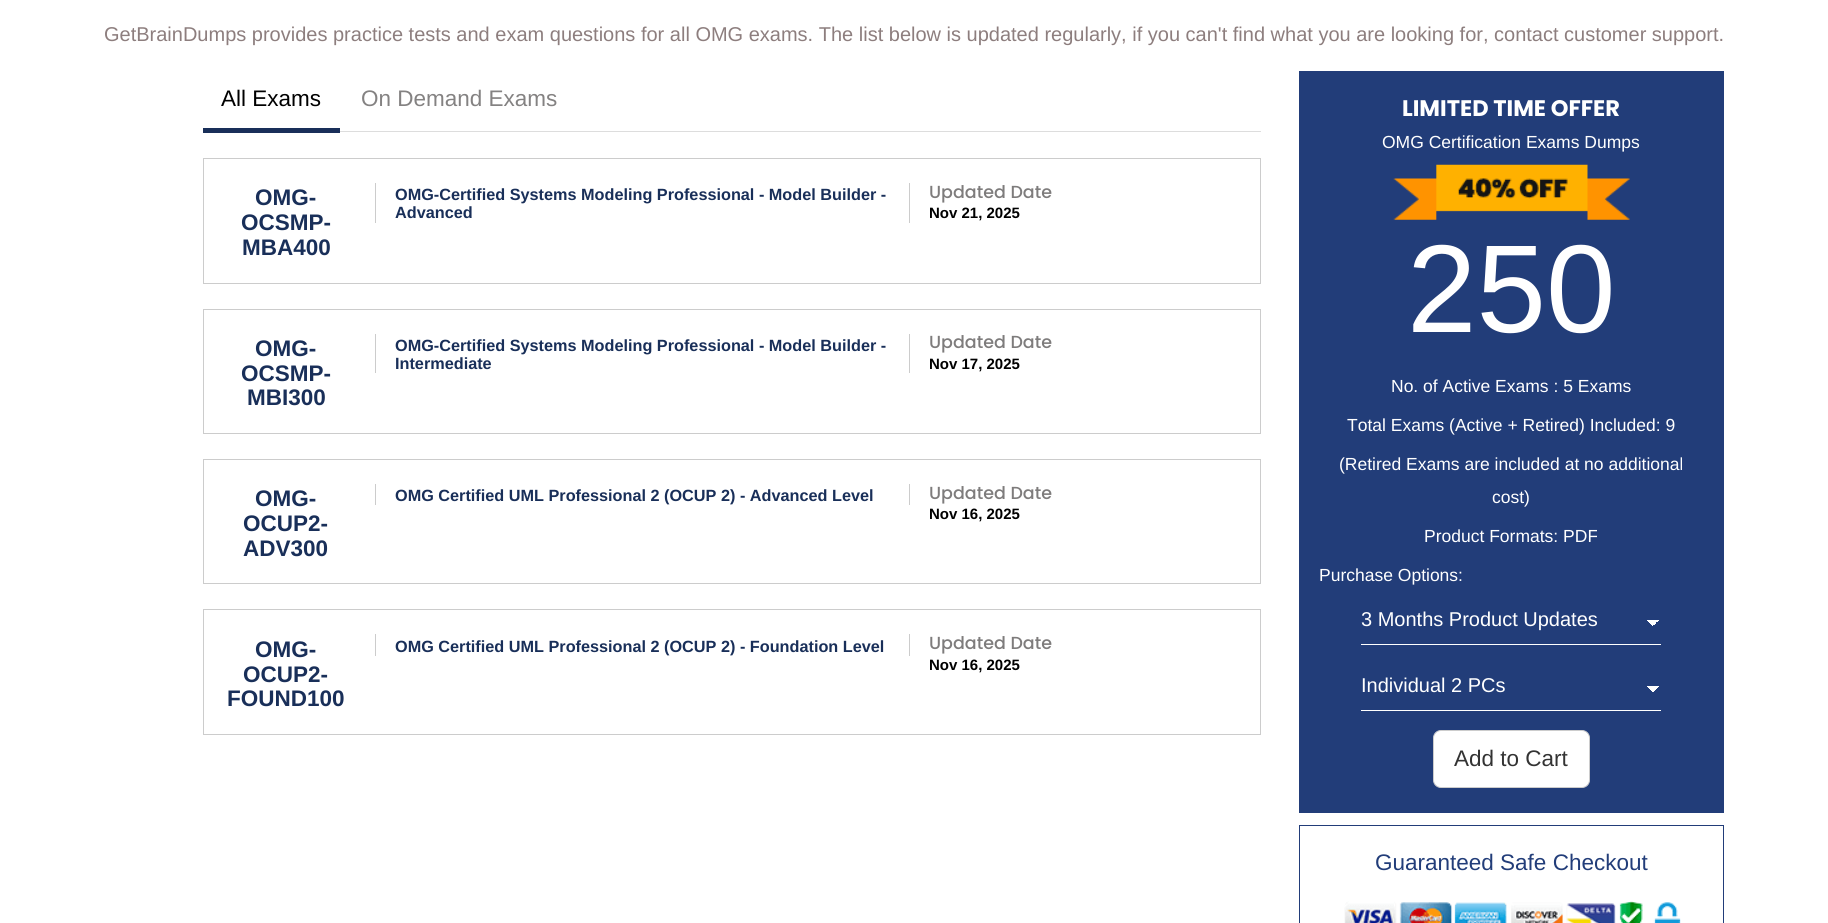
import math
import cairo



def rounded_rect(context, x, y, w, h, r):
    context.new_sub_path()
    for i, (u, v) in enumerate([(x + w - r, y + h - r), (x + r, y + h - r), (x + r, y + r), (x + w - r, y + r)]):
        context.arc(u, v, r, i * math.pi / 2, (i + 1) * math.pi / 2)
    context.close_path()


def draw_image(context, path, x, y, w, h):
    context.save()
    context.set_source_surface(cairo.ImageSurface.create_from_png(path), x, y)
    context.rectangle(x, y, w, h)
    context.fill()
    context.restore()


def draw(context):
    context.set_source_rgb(1, 1, 1)
    context.paint()
    context.set_source_rgb(221 / 255, 221 / 255, 221 / 255)
    context.rectangle(340, 131, 921, 1)
    context.fill()
    context.set_source_rgb(25 / 255, 47 / 255, 89 / 255)
    context.rectangle(203, 128, 137, 5)
    context.fill()
    context.rectangle(203.5, 158.5, 1057, 125)
    context.set_source_rgb(204 / 255, 204 / 255, 204 / 255)
    context.set_line_width(1)
    context.stroke()
    context.rectangle(909, 183, 1, 40)
    context.fill()
    context.rectangle(375, 183, 1, 40)
    context.fill()
    context.rectangle(203.5, 309.5, 1057, 124)
    context.stroke()
    context.rectangle(909, 334, 1, 39)
    context.fill()
    context.rectangle(375, 334, 1, 39)
    context.fill()
    context.rectangle(203.5, 459.5, 1057, 124)
    context.stroke()
    context.rectangle(909, 484, 1, 21)
    context.fill()
    context.rectangle(375, 484, 1, 21)
    context.fill()
    context.rectangle(203.5, 609.5, 1057, 125)
    context.stroke()
    context.rectangle(909, 634, 1, 22)
    context.fill()
    context.rectangle(375, 634, 1, 22)
    context.fill()
    context.set_source_rgb(34 / 255, 61 / 255, 121 / 255)
    context.rectangle(1299, 71, 425, 742)
    context.fill()
    draw_image(context, "images/1.png", 1393, 164, 237, 56)
    gradient = cairo.LinearGradient(1653, 620, 1659, 626)
    gradient.add_color_stop_rgba(0.5, 1, 1, 1, 1)
    gradient.add_color_stop_rgba(0.5, 34 / 255, 61 / 255, 121 / 255, 1)
    context.set_source(gradient)
    context.rectangle(1653, 620, 6, 5)
    context.fill()
    gradient = cairo.LinearGradient(1646, 626, 1653, 620)
    gradient.add_color_stop_rgba(0.5, 34 / 255, 61 / 255, 121 / 255, 1)
    gradient.add_color_stop_rgba(0.5, 1, 1, 1, 1)
    context.set_source(gradient)
    context.rectangle(1646, 620, 7, 6)
    context.fill()
    context.set_source_rgb(1, 1, 1)
    context.rectangle(1361, 644, 300, 1)
    context.fill()
    gradient = cairo.LinearGradient(1653, 686, 1659, 693)
    gradient.add_color_stop_rgba(0.5, 1, 1, 1, 1)
    gradient.add_color_stop_rgba(0.5, 34 / 255, 61 / 255, 121 / 255, 1)
    context.set_source(gradient)
    context.rectangle(1653, 686, 6, 7)
    context.fill()
    gradient = cairo.LinearGradient(1646, 693, 1653, 686)
    gradient.add_color_stop_rgba(0.5, 34 / 255, 61 / 255, 121 / 255, 1)
    gradient.add_color_stop_rgba(0.5, 1, 1, 1, 1)
    context.set_source(gradient)
    context.rectangle(1646, 686, 7, 6)
    context.fill()
    context.set_source_rgb(1, 1, 1)
    context.rectangle(1361, 710, 300, 1)
    context.fill()
    rounded_rect(context, 1433.5, 730.5, 156, 57, 7.5)
    context.fill_preserve()
    context.set_source_rgb(204 / 255, 204 / 255, 204 / 255)
    context.stroke()
    context.rectangle(1299.5, 825.5, 424, 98)
    context.set_source_rgb(34 / 255, 61 / 255, 121 / 255)
    context.stroke()
    draw_image(context, "images/2.png", 1344, 901, 337, 22)
    context.select_font_face("Liberation Sans")
    context.set_font_size(20)
    context.set_source_rgb(141 / 255, 126 / 255, 126 / 255)
    context.move_to(104, 41)
    context.show_text("GetBrainDumps provides practice tests and exam questions for all OMG exams. The list below is updated regularly, if you can't find what you are looking for, contact customer support.")
    context.set_font_size(22.5)
    context.set_source_rgb(0, 0, 0)
    context.move_to(221, 106)
    context.show_text("All Exams")
    context.set_source_rgb(132 / 255, 130 / 255, 130 / 255)
    context.move_to(361, 106)
    context.show_text("On Demand Exams")
    context.select_font_face("Liberation Sans", cairo.FontSlant.NORMAL, cairo.FontWeight.BOLD)
    context.set_source_rgb(25 / 255, 47 / 255, 89 / 255)
    context.move_to(255, 205)
    context.show_text("OMG-")
    context.move_to(241, 230)
    context.show_text("OCSMP-")
    context.move_to(242, 255)
    context.show_text("MBA400")
    context.set_font_size(16.25)
    context.move_to(395, 200)
    context.show_text("OMG-Certified Systems Modeling Professional - Model Builder -")
    context.move_to(395, 218)
    context.show_text("Advanced")
    context.select_font_face("Poppins Medium")
    context.set_font_size(17.5)
    context.set_source_rgb(126 / 255, 124 / 255, 124 / 255)
    context.move_to(929, 198)
    context.show_text("Updated Date")
    context.select_font_face("Liberation Sans", cairo.FontSlant.NORMAL, cairo.FontWeight.BOLD)
    context.set_font_size(15)
    context.set_source_rgb(0, 0, 0)
    context.move_to(929, 218)
    context.show_text("Nov 21, 2025")
    context.set_font_size(22.5)
    context.set_source_rgb(25 / 255, 47 / 255, 89 / 255)
    context.move_to(255, 356)
    context.show_text("OMG-")
    context.move_to(241, 381)
    context.show_text("OCSMP-")
    context.move_to(247, 405)
    context.show_text("MBI300")
    context.set_font_size(16.25)
    context.move_to(395, 351)
    context.show_text("OMG-Certified Systems Modeling Professional - Model Builder -")
    context.move_to(395, 369)
    context.show_text("Intermediate")
    context.select_font_face("Poppins Medium")
    context.set_font_size(17.5)
    context.set_source_rgb(126 / 255, 124 / 255, 124 / 255)
    context.move_to(929, 348)
    context.show_text("Updated Date")
    context.select_font_face("Liberation Sans", cairo.FontSlant.NORMAL, cairo.FontWeight.BOLD)
    context.set_font_size(15)
    context.set_source_rgb(0, 0, 0)
    context.move_to(929, 369)
    context.show_text("Nov 17, 2025")
    context.set_font_size(22.5)
    context.set_source_rgb(25 / 255, 47 / 255, 89 / 255)
    context.move_to(255, 506)
    context.show_text("OMG-")
    context.move_to(243, 531)
    context.show_text("OCUP2-")
    context.move_to(243, 556)
    context.show_text("ADV300")
    context.set_font_size(16.25)
    context.move_to(395, 501)
    context.show_text("OMG Certified UML Professional 2 (OCUP 2) - Advanced Level")
    context.select_font_face("Poppins Medium")
    context.set_font_size(17.5)
    context.set_source_rgb(126 / 255, 124 / 255, 124 / 255)
    context.move_to(929, 499)
    context.show_text("Updated Date")
    context.select_font_face("Liberation Sans", cairo.FontSlant.NORMAL, cairo.FontWeight.BOLD)
    context.set_font_size(15)
    context.set_source_rgb(0, 0, 0)
    context.move_to(929, 519)
    context.show_text("Nov 16, 2025")
    context.set_font_size(22.5)
    context.set_source_rgb(25 / 255, 47 / 255, 89 / 255)
    context.move_to(255, 657)
    context.show_text("OMG-")
    context.move_to(243, 682)
    context.show_text("OCUP2-")
    context.move_to(227, 706)
    context.show_text("FOUND100")
    context.set_font_size(16.25)
    context.move_to(395, 652)
    context.show_text("OMG Certified UML Professional 2 (OCUP 2) - Foundation Level")
    context.select_font_face("Poppins Medium")
    context.set_font_size(17.5)
    context.set_source_rgb(126 / 255, 124 / 255, 124 / 255)
    context.move_to(929, 649)
    context.show_text("Updated Date")
    context.select_font_face("Liberation Sans", cairo.FontSlant.NORMAL, cairo.FontWeight.BOLD)
    context.set_font_size(15)
    context.set_source_rgb(0, 0, 0)
    context.move_to(929, 670)
    context.show_text("Nov 16, 2025")
    context.select_font_face("Poppins", cairo.FontSlant.NORMAL, cairo.FontWeight.BOLD)
    context.set_font_size(22.5)
    context.set_source_rgb(1, 1, 1)
    context.move_to(1402, 116)
    context.show_text("LIMITED TIME OFFER")
    context.select_font_face("Liberation Sans")
    context.set_font_size(17.5)
    context.move_to(1382, 148)
    context.show_text("OMG Certification Exams Dumps")
    context.set_font_size(125)
    context.move_to(1407, 332)
    context.show_text("250")
    context.set_font_size(17.5)
    context.move_to(1391, 392)
    context.show_text("No. of Active Exams : 5 Exams")
    context.move_to(1347, 431)
    context.show_text("Total Exams (Active + Retired) Included: 9")
    context.move_to(1339, 470)
    context.show_text("(Retired Exams are included at no additional")
    context.move_to(1492, 503)
    context.show_text("cost)")
    context.move_to(1424, 542)
    context.show_text("Product Formats: PDF")
    context.move_to(1319, 581)
    context.show_text("Purchase Options:")
    context.set_font_size(20)
    context.move_to(1361, 626)
    context.show_text("3 Months Product Updates")
    context.move_to(1361, 692)
    context.show_text("Individual 2 PCs")
    context.set_font_size(22.5)
    context.set_source_rgb(51 / 255, 51 / 255, 51 / 255)
    context.move_to(1454, 766)
    context.show_text("Add to Cart")
    context.set_source_rgb(34 / 255, 61 / 255, 121 / 255)
    context.move_to(1375, 870)
    context.show_text("Guaranteed Safe Checkout")


surface = cairo.ImageSurface(cairo.Format.RGB24, 1828, 923)
context = cairo.Context(surface)
options = cairo.FontOptions()
options.set_hint_metrics(cairo.HintMetrics.OFF)
options.set_hint_style(cairo.HintStyle.NONE)
context.set_font_options(options)
context.set_miter_limit(4)
draw(context)
surface.write_to_png("out.png")
